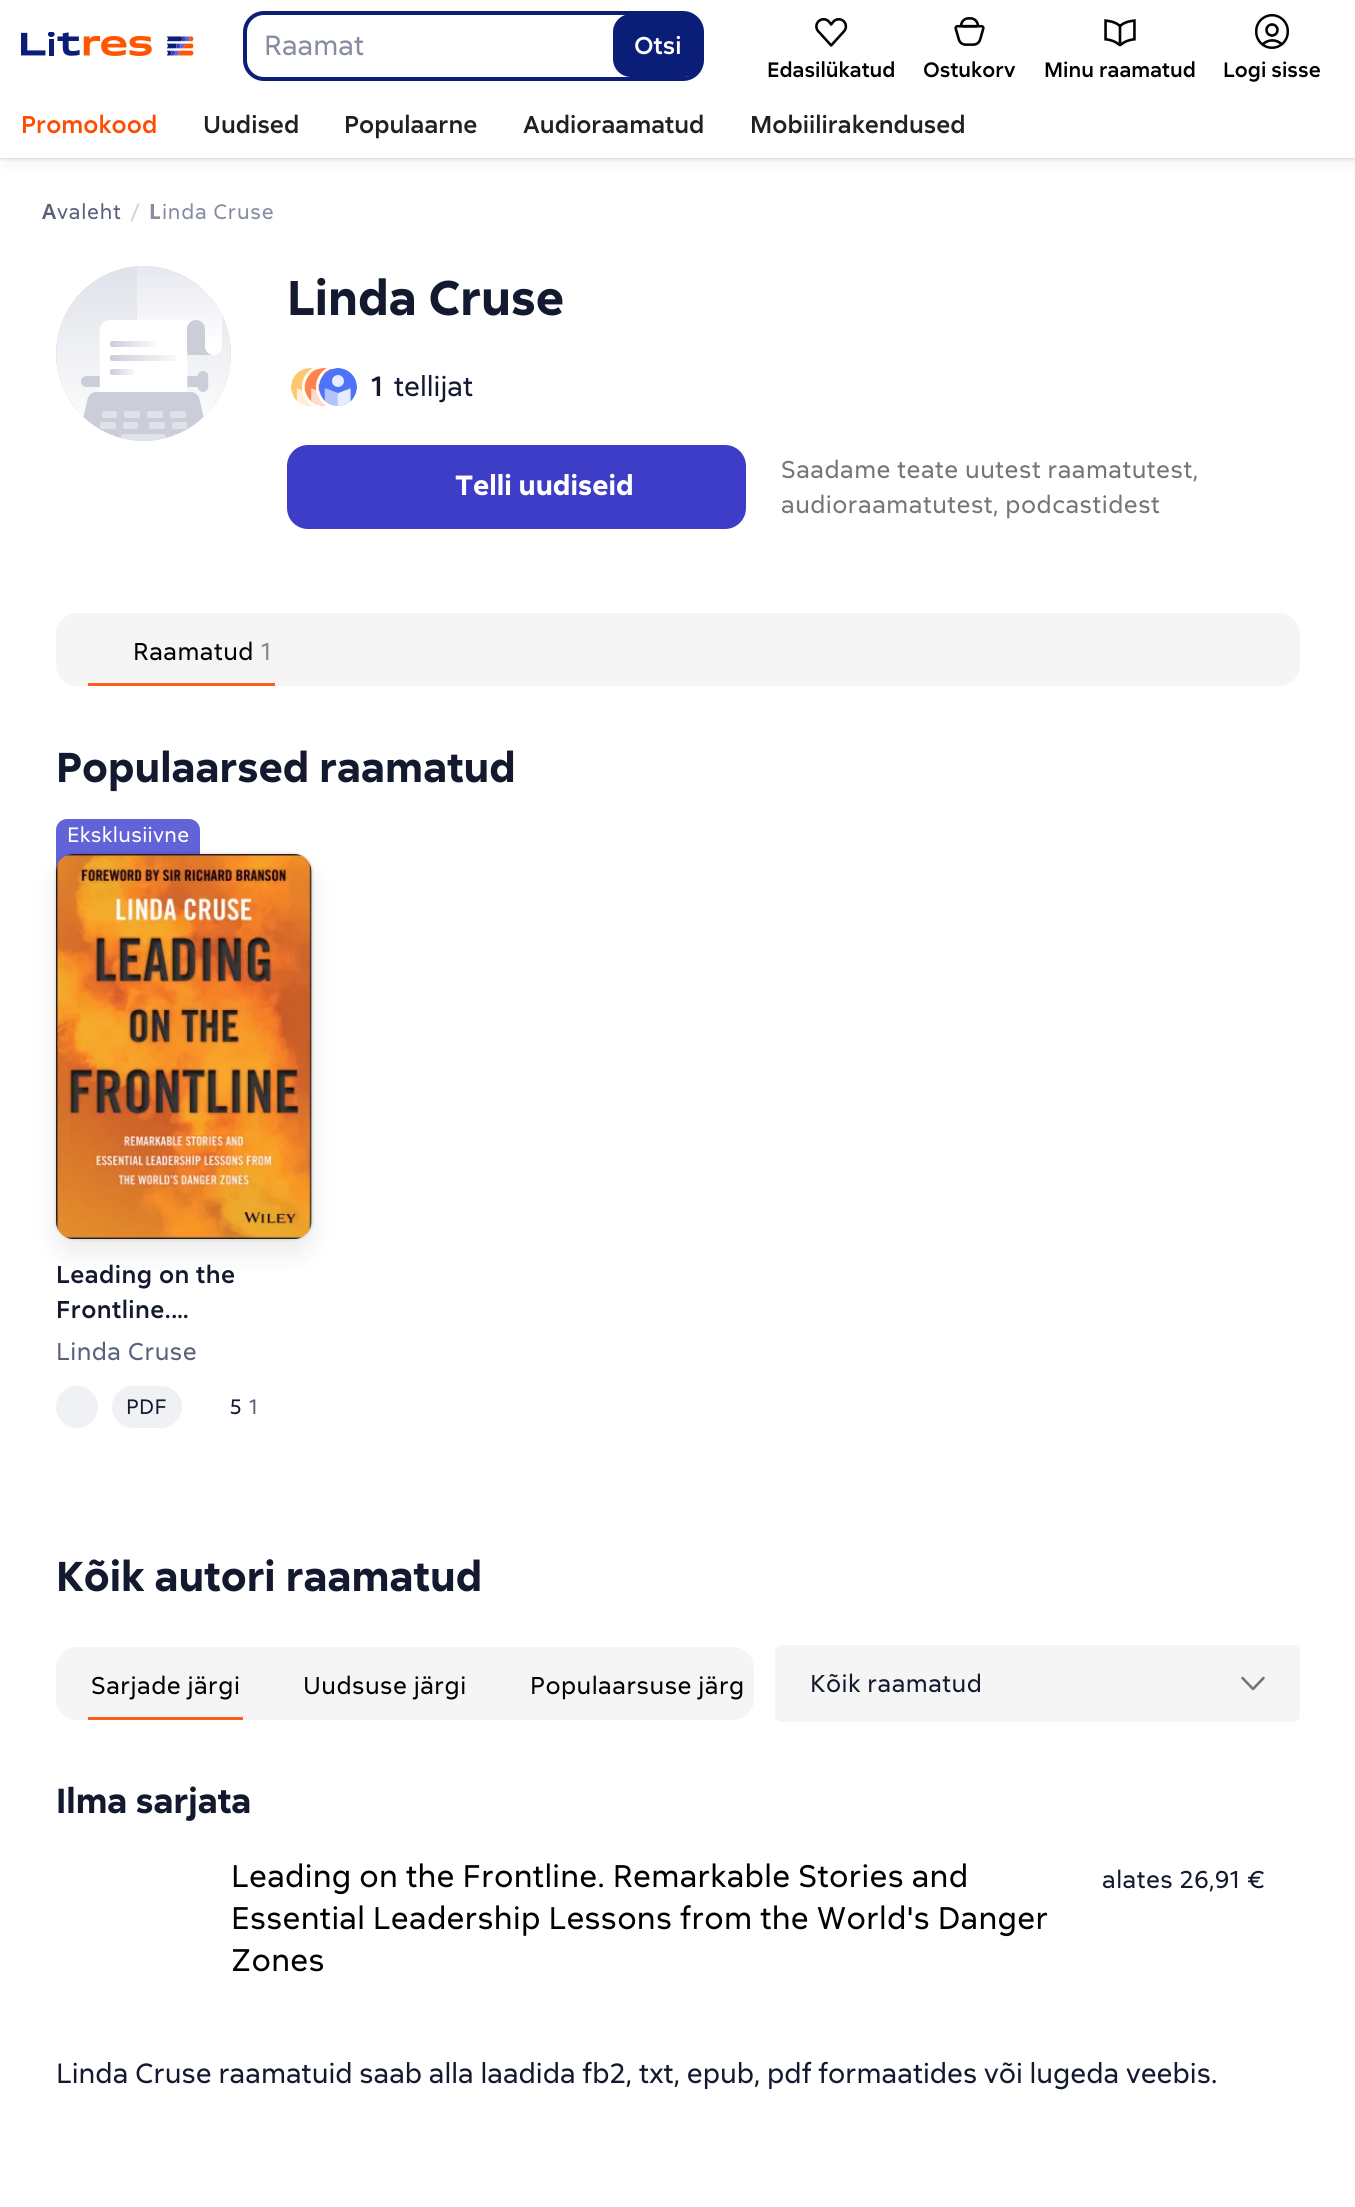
import math
import cairo



def draw_spaced(context, x, y, s, letter, word):
    context.move_to(x, y)
    for ch in s:
        context.show_text(ch)
        context.rel_move_to(letter + word * (ch == ' '), 0)


def rounded_rect(context, x, y, w, h, r):
    context.new_sub_path()
    for i, (u, v) in enumerate([(x + w - r, y + h - r), (x + r, y + h - r), (x + r, y + r), (x + w - r, y + r)]):
        context.arc(u, v, r, i * math.pi / 2, (i + 1) * math.pi / 2)
    context.close_path()


def draw_shadow(context, x, y, w, h, r, blur, alpha):
    context.push_group_with_content(cairo.Content.ALPHA)
    context.set_operator(cairo.Operator.SOURCE)
    for i in range(15, -16, -2):
        e = blur * i / 6
        if min(w, h) + 2 * e > 0:
            context.set_source_rgba(0, 0, 0, alpha * math.erfc((i - 1) / 8.5) / 2)
            rounded_rect(context, x - e, y - e, w + 2 * e, h + 2 * e, max(0, min(r + e + blur * .6, min(w, h) / 2 + e)))
            context.fill()
    context.mask(context.pop_group())


def draw_image(context, path, x, y, w, h):
    context.save()
    context.set_source_surface(cairo.ImageSurface.create_from_png(path), x, y)
    context.rectangle(x, y, w, h)
    context.fill()
    context.restore()


def draw(context):
    context.set_source_rgb(1, 1, 1)
    context.paint()
    draw_image(context, "images/1.png", 21, 32, 173, 24)
    rounded_rect(context, 245, 13, 457, 66, 19)
    context.set_source_rgb(10 / 255, 30 / 255, 120 / 255)
    context.set_line_width(4)
    context.stroke()
    rounded_rect(context, 613, 14, 89, 63, 18)
    context.fill()
    draw_image(context, "images/2.png", 815, 18, 33, 29)
    draw_image(context, "images/3.png", 954, 17, 31, 29)
    draw_image(context, "images/4.png", 1104, 19, 32, 28)
    context.arc(1272, 30, 5.5, 0, 2 * math.pi)
    context.set_source_rgb(2 / 255, 3 / 255, 5 / 255)
    context.set_line_width(2.6)
    context.stroke()
    context.new_path()
    context.move_to(1262.5, 44.5)
    context.curve_to(1268, 39, 1276.5, 39, 1282, 44.5)
    context.stroke()
    rounded_rect(context, 1256.25, 15.25, 31.5, 32.5, 15.75)
    context.set_line_width(2.5)
    context.stroke()
    context.set_source_rgb(0, 0, 0)
    draw_shadow(context, 4, 131, 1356, 34, 0, 7, 0.04)
    draw_shadow(context, 0, 124, 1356, 34, 0, 2, 0.24)
    context.set_source_rgb(1, 1, 1)
    context.rectangle(0, 120, 1355, 38)
    context.fill()
    draw_image(context, "images/5.png", 56, 266, 175, 175)
    draw_image(context, "images/6.png", 291, 368, 66, 38)
    context.set_source_rgb(61 / 255, 61 / 255, 199 / 255)
    rounded_rect(context, 287, 445, 459, 84, 21)
    context.fill()
    context.set_source_rgb(245 / 255, 245 / 255, 245 / 255)
    rounded_rect(context, 56, 613, 1244, 73, 21)
    context.fill()
    context.set_source_rgb(1, 94 / 255, 26 / 255)
    context.rectangle(88, 683, 187, 3)
    context.fill()
    context.set_source_rgb(98 / 255, 98 / 255, 217 / 255)
    context.new_path()
    context.move_to(67, 819)
    context.line_to(189, 819)
    context.curve_to(195, 819, 200, 824, 200, 830)
    context.line_to(200, 872)
    context.line_to(56, 872)
    context.line_to(56, 830)
    context.curve_to(56, 824, 61, 819, 67, 819)
    context.close_path()
    context.fill()
    context.set_source_rgb(226 / 255, 228 / 255, 234 / 255)
    rounded_rect(context, 56, 854, 256, 385, 18)
    context.fill()
    context.set_source_rgb(0, 0, 0)
    draw_shadow(context, 56, 868, 256, 385, 18, 14, 0.08)
    draw_shadow(context, 56, 854, 256, 385, 18, 2, 0.16)
    draw_image(context, "images/7.png", 56, 854, 256, 385)
    context.set_source_rgb(240 / 255, 241 / 255, 245 / 255)
    context.arc(77, 1407, 21, 0, 2 * math.pi)
    context.fill()
    rounded_rect(context, 112, 1386, 70, 42, 21)
    context.fill()
    context.set_source_rgb(245 / 255, 245 / 255, 245 / 255)
    rounded_rect(context, 56, 1647, 698, 73, 21)
    context.fill()
    context.set_source_rgb(1, 94 / 255, 26 / 255)
    context.rectangle(88, 1717, 155, 3)
    context.fill()
    context.set_source_rgb(245 / 255, 245 / 255, 245 / 255)
    rounded_rect(context, 775, 1645, 525, 77, 7)
    context.fill()
    context.new_path()
    context.move_to(1263.5, 1678)
    context.line_to(1253, 1689)
    context.move_to(1242.5, 1678)
    context.line_to(1253, 1689)
    context.set_source_rgb(118 / 255, 117 / 255, 121 / 255)
    context.set_line_width(2.6)
    context.set_line_cap(cairo.LineCap.ROUND)
    context.stroke()
    context.select_font_face("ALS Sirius")
    context.set_font_size(28)
    context.set_source_rgb(134 / 255, 140 / 255, 162 / 255)
    context.move_to(264, 55)
    context.show_text("Raamat")
    context.select_font_face("ALS Sirius Medium")
    context.set_font_size(24.5)
    context.set_source_rgb(1, 1, 1)
    context.move_to(634, 54)
    context.show_text("Otsi")
    context.set_font_size(21)
    context.set_source_rgb(0, 0, 0)
    context.move_to(767, 77)
    context.show_text("Edasilükatud")
    context.move_to(923, 77)
    context.show_text("Ostukorv")
    context.move_to(1044, 77)
    context.show_text("Minu raamatud")
    context.move_to(1223, 77)
    context.show_text("Logi sisse")
    context.set_font_size(24.5)
    context.set_source_rgb(1, 76 / 255, 0)
    context.move_to(21, 133)
    context.show_text("Promokood")
    context.set_source_rgb(33 / 255, 33 / 255, 33 / 255)
    context.move_to(203, 133)
    context.show_text("Uudised")
    context.move_to(344, 133)
    context.show_text("Populaarne")
    context.move_to(523, 133)
    context.show_text("Audioraamatud")
    context.move_to(750, 133)
    context.show_text("Mobiilirakendused")
    context.select_font_face("Noto Sans SemiBold")
    context.set_font_size(21)
    context.set_source_rgb(90 / 255, 97 / 255, 124 / 255)
    draw_spaced(context, 42, 219, "A", 0.75, 0)
    context.select_font_face("ALS Sirius")
    draw_spaced(context, 57, 219, "valeht", 0.75, 0)
    context.set_source_rgb(203 / 255, 206 / 255, 217 / 255)
    draw_spaced(context, 130, 219, "/", 0.75, 0)
    context.select_font_face("Noto Sans", cairo.FontSlant.NORMAL, cairo.FontWeight.BOLD)
    context.set_source_rgb(134 / 255, 140 / 255, 162 / 255)
    draw_spaced(context, 149, 219, "L", 0.75, 0)
    context.select_font_face("ALS Sirius")
    draw_spaced(context, 162, 219, "inda Cruse", 0.75, 0)
    context.select_font_face("ALS Sirius", cairo.FontSlant.NORMAL, cairo.FontWeight.BOLD)
    context.set_font_size(49)
    context.set_source_rgb(19 / 255, 25 / 255, 46 / 255)
    context.move_to(287, 315)
    context.show_text("Linda Cruse")
    context.select_font_face("ALS Sirius Medium")
    context.set_font_size(28)
    context.move_to(371, 396)
    context.show_text("1")
    context.select_font_face("ALS Sirius")
    context.move_to(394, 396)
    context.show_text("tellijat")
    context.select_font_face("ALS Sirius", cairo.FontSlant.NORMAL, cairo.FontWeight.BOLD)
    context.set_source_rgb(1, 1, 1)
    context.move_to(455, 495)
    context.show_text("Telli uudiseid")
    context.select_font_face("ALS Sirius")
    context.set_font_size(24.5)
    context.set_source_rgb(118 / 255, 116 / 255, 121 / 255)
    draw_spaced(context, 781, 478, "Saadame teate uutest raamatutest,", 0.45, 0)
    draw_spaced(context, 781, 513, "audioraamatutest, podcastidest", 0.45, 0)
    context.set_source_rgb(0, 0, 0)
    draw_spaced(context, 133, 660, "Raamatud", 0.45, 0)
    context.set_source_rgb(137 / 255, 136 / 255, 140 / 255)
    draw_spaced(context, 261, 660, "1", 0.45, 0)
    context.select_font_face("ALS Sirius", cairo.FontSlant.NORMAL, cairo.FontWeight.BOLD)
    context.set_font_size(42)
    context.set_source_rgb(19 / 255, 25 / 255, 46 / 255)
    context.move_to(56, 782)
    context.show_text("Populaarsed raamatud")
    context.select_font_face("ALS Sirius")
    context.set_font_size(21)
    context.set_source_rgb(1, 1, 1)
    draw_spaced(context, 67, 842, "Eksklusiivne", 0.3, 0)
    context.select_font_face("ALS Sirius Medium")
    context.set_font_size(24.5)
    context.set_source_rgb(19 / 255, 25 / 255, 46 / 255)
    draw_spaced(context, 56, 1283, "Leading on the", 0.45, 0)
    draw_spaced(context, 56, 1318, "Frontline.…", 0.45, 0)
    context.select_font_face("ALS Sirius")
    context.set_source_rgb(90 / 255, 97 / 255, 124 / 255)
    draw_spaced(context, 56, 1360, "Linda Cruse", 0.45, 0)
    context.set_font_size(21)
    context.set_source_rgb(19 / 255, 25 / 255, 46 / 255)
    draw_spaced(context, 126, 1414, "PDF", 0.3, 0)
    context.move_to(230, 1414)
    context.show_text("5")
    context.set_source_rgb(90 / 255, 97 / 255, 124 / 255)
    context.move_to(249, 1414)
    context.show_text("1")
    context.select_font_face("ALS Sirius", cairo.FontSlant.NORMAL, cairo.FontWeight.BOLD)
    context.set_font_size(42)
    context.set_source_rgb(19 / 255, 25 / 255, 46 / 255)
    context.move_to(56, 1591)
    context.show_text("Kõik autori raamatud")
    context.select_font_face("ALS Sirius")
    context.set_font_size(24.5)
    context.set_source_rgb(0, 0, 0)
    draw_spaced(context, 91, 1694, "Sarjade järgi", 0.45, 0)
    draw_spaced(context, 303, 1694, "Uudsuse järgi", 0.45, 0)
    draw_spaced(context, 530, 1694, "Populaarsuse järg", 0.45, 0)
    context.set_source_rgb(19 / 255, 25 / 255, 46 / 255)
    draw_spaced(context, 810, 1692, "Kõik raamatud", 0.45, 0)
    context.select_font_face("ALS Sirius", cairo.FontSlant.NORMAL, cairo.FontWeight.BOLD)
    context.set_font_size(35)
    context.move_to(56, 1813)
    context.show_text("Ilma sarjata")
    context.select_font_face("ALS Sirius")
    context.set_font_size(31.5)
    context.set_source_rgb(0, 0, 0)
    draw_spaced(context, 231, 1887, "Leading on the Frontline. Remarkable Stories and", 0.25, 0)
    draw_spaced(context, 231, 1929, "Essential Leadership Lessons from the World's Danger", 0.25, 0)
    draw_spaced(context, 231, 1971, "Zones", 0.25, 0)
    context.set_font_size(24.5)
    context.set_source_rgb(19 / 255, 25 / 255, 46 / 255)
    draw_spaced(context, 1102, 1888, "alates 26,91 €", 0.45, 0)
    context.set_font_size(28)
    context.move_to(56, 2083)
    context.show_text("Linda Cruse raamatuid saab alla laadida fb2, txt, epub, pdf formaatides või lugeda veebis.")


surface = cairo.ImageSurface(cairo.Format.RGB24, 1355, 2207)
context = cairo.Context(surface)
options = cairo.FontOptions()
options.set_hint_metrics(cairo.HintMetrics.OFF)
options.set_hint_style(cairo.HintStyle.NONE)
context.set_font_options(options)
context.set_miter_limit(4)
draw(context)
surface.write_to_png("out.png")
